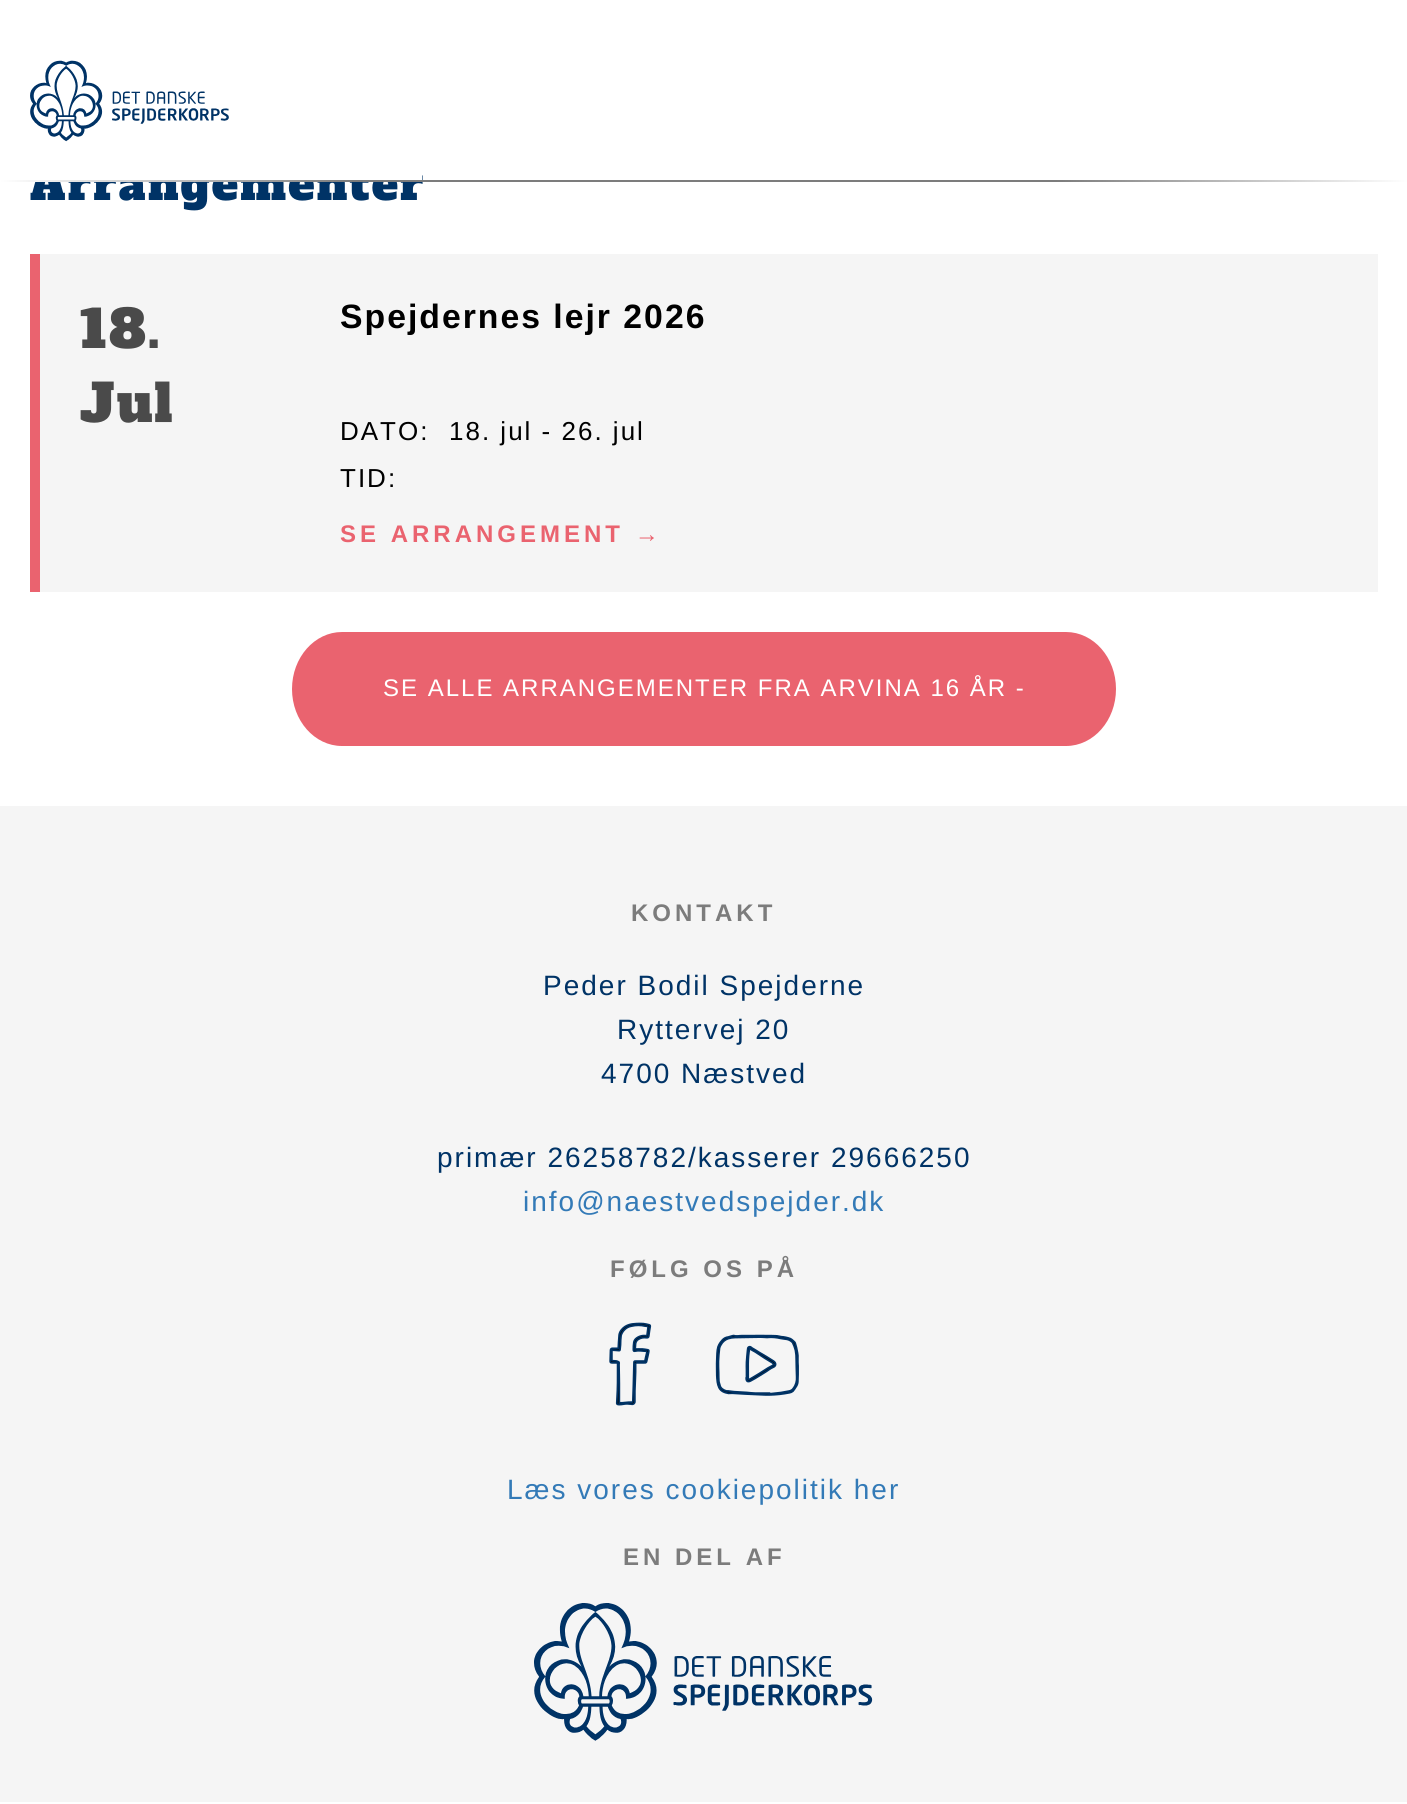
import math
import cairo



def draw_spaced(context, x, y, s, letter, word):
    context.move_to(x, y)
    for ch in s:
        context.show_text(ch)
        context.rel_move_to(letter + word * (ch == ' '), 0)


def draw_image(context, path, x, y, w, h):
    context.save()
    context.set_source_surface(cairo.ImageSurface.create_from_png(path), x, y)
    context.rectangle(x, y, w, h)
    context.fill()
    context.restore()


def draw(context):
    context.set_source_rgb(1, 1, 1)
    context.paint()
    draw_image(context, "images/1.png", 30, 60, 199, 82)
    context.set_source_rgb(245 / 255, 245 / 255, 245 / 255)
    context.rectangle(40, 254, 1338, 338)
    context.fill()
    context.set_source_rgb(234 / 255, 99 / 255, 111 / 255)
    context.rectangle(30, 254, 10, 338)
    context.fill()
    context.rectangle(342, 632, 724, 114)
    context.fill()
    context.new_path()
    context.move_to(342, 632)
    context.curve_to(369.5, 632, 392, 657.5, 392, 689)
    context.curve_to(392, 720.5, 369.5, 746, 342, 746)
    context.curve_to(314.5, 746, 292, 720.5, 292, 689)
    context.curve_to(292, 657.5, 314.5, 632, 342, 632)
    context.close_path()
    context.fill()
    context.new_path()
    context.move_to(1066, 632)
    context.curve_to(1093.5, 632, 1116, 657.5, 1116, 689)
    context.curve_to(1116, 720.5, 1093.5, 746, 1066, 746)
    context.curve_to(1038.5, 746, 1016, 720.5, 1016, 689)
    context.curve_to(1016, 657.5, 1038.5, 632, 1066, 632)
    context.close_path()
    context.fill()
    context.set_source_rgb(245 / 255, 245 / 255, 245 / 255)
    context.rectangle(0, 806, 1407, 996)
    context.fill()
    draw_image(context, "images/2.png", 609, 1322, 43, 84)
    draw_image(context, "images/3.png", 715, 1334, 84, 62)
    draw_image(context, "images/4.png", 534, 1603, 339, 138)
    context.select_font_face("Alfa Slab One")
    context.set_font_size(44)
    context.set_source_rgb(0, 51 / 255, 102 / 255)
    draw_spaced(context, 30, 200, "Arrangementer", 2.25, 0)
    gradient = cairo.LinearGradient(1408, 181, 0, 181)
    gradient.add_color_stop_rgba(0, 1, 1, 1, 1)
    gradient.add_color_stop_rgba(0.25, 124 / 255, 124 / 255, 124 / 255, 1)
    gradient.add_color_stop_rgba(0.75, 124 / 255, 124 / 255, 124 / 255, 1)
    gradient.add_color_stop_rgba(1, 1, 1, 1, 1)
    context.set_source(gradient)
    context.rectangle(0, 180, 1407, 2)
    context.fill()
    context.set_source_rgb(1, 1, 1)
    context.rectangle(35, 165, 387, 15)
    context.fill()
    context.set_font_size(52)
    context.set_source_rgb(74 / 255, 74 / 255, 74 / 255)
    draw_spaced(context, 80, 348, "18.", 2, 0)
    draw_spaced(context, 80, 422, "Jul", 2, 0)
    context.select_font_face("Liberation Sans", cairo.FontSlant.NORMAL, cairo.FontWeight.BOLD)
    context.set_font_size(33.75)
    context.set_source_rgb(0, 0, 0)
    draw_spaced(context, 340, 328, "Spejdernes lejr 2026", 2, 0)
    context.select_font_face("Liberation Sans")
    context.set_font_size(26)
    draw_spaced(context, 340, 440, "DATO:", 2, 0)
    draw_spaced(context, 449, 440, "18. jul - 26. jul", 2, 0)
    draw_spaced(context, 340, 487, "TID:", 2, 0)
    context.select_font_face("Liberation Sans", cairo.FontSlant.NORMAL, cairo.FontWeight.BOLD)
    context.set_font_size(24)
    context.set_source_rgb(234 / 255, 99 / 255, 111 / 255)
    draw_spaced(context, 340, 542, "SE ARRANGEMENT →", 4, 0)
    context.select_font_face("Liberation Sans")
    context.set_source_rgb(1, 1, 1)
    draw_spaced(context, 383, 696, "SE ALLE ARRANGEMENTER FRA ARVINA 16 ÅR -", 2, 0)
    context.select_font_face("Liberation Sans", cairo.FontSlant.NORMAL, cairo.FontWeight.BOLD)
    context.set_source_rgb(124 / 255, 124 / 255, 124 / 255)
    draw_spaced(context, 631, 921, "KONTAKT", 4, 0)
    context.select_font_face("Liberation Sans")
    context.set_font_size(28)
    context.set_source_rgb(0, 51 / 255, 102 / 255)
    draw_spaced(context, 543, 995, "Peder Bodil Spejderne", 2, 0)
    draw_spaced(context, 617, 1039, "Ryttervej 20", 2, 0)
    draw_spaced(context, 601, 1083, "4700 Næstved", 2, 0)
    draw_spaced(context, 437, 1167, "primær 26258782/kasserer 29666250", 2, 0)
    context.set_source_rgb(51 / 255, 122 / 255, 183 / 255)
    draw_spaced(context, 523, 1211, "info@naestvedspejder.dk", 2, 0)
    context.select_font_face("Liberation Sans", cairo.FontSlant.NORMAL, cairo.FontWeight.BOLD)
    context.set_font_size(24)
    context.set_source_rgb(124 / 255, 124 / 255, 124 / 255)
    draw_spaced(context, 610, 1277, "FØLG OS PÅ", 4, 0)
    context.select_font_face("Liberation Sans")
    context.set_font_size(28)
    context.set_source_rgb(51 / 255, 122 / 255, 183 / 255)
    draw_spaced(context, 507, 1499, "Læs vores cookiepolitik her", 2, 0)
    context.select_font_face("Liberation Sans", cairo.FontSlant.NORMAL, cairo.FontWeight.BOLD)
    context.set_font_size(24)
    context.set_source_rgb(124 / 255, 124 / 255, 124 / 255)
    draw_spaced(context, 623, 1565, "EN DEL AF", 4, 0)


surface = cairo.ImageSurface(cairo.Format.RGB24, 1407, 1804)
context = cairo.Context(surface)
options = cairo.FontOptions()
options.set_hint_metrics(cairo.HintMetrics.OFF)
options.set_hint_style(cairo.HintStyle.NONE)
context.set_font_options(options)
context.set_miter_limit(4)
draw(context)
surface.write_to_png("out.png")
